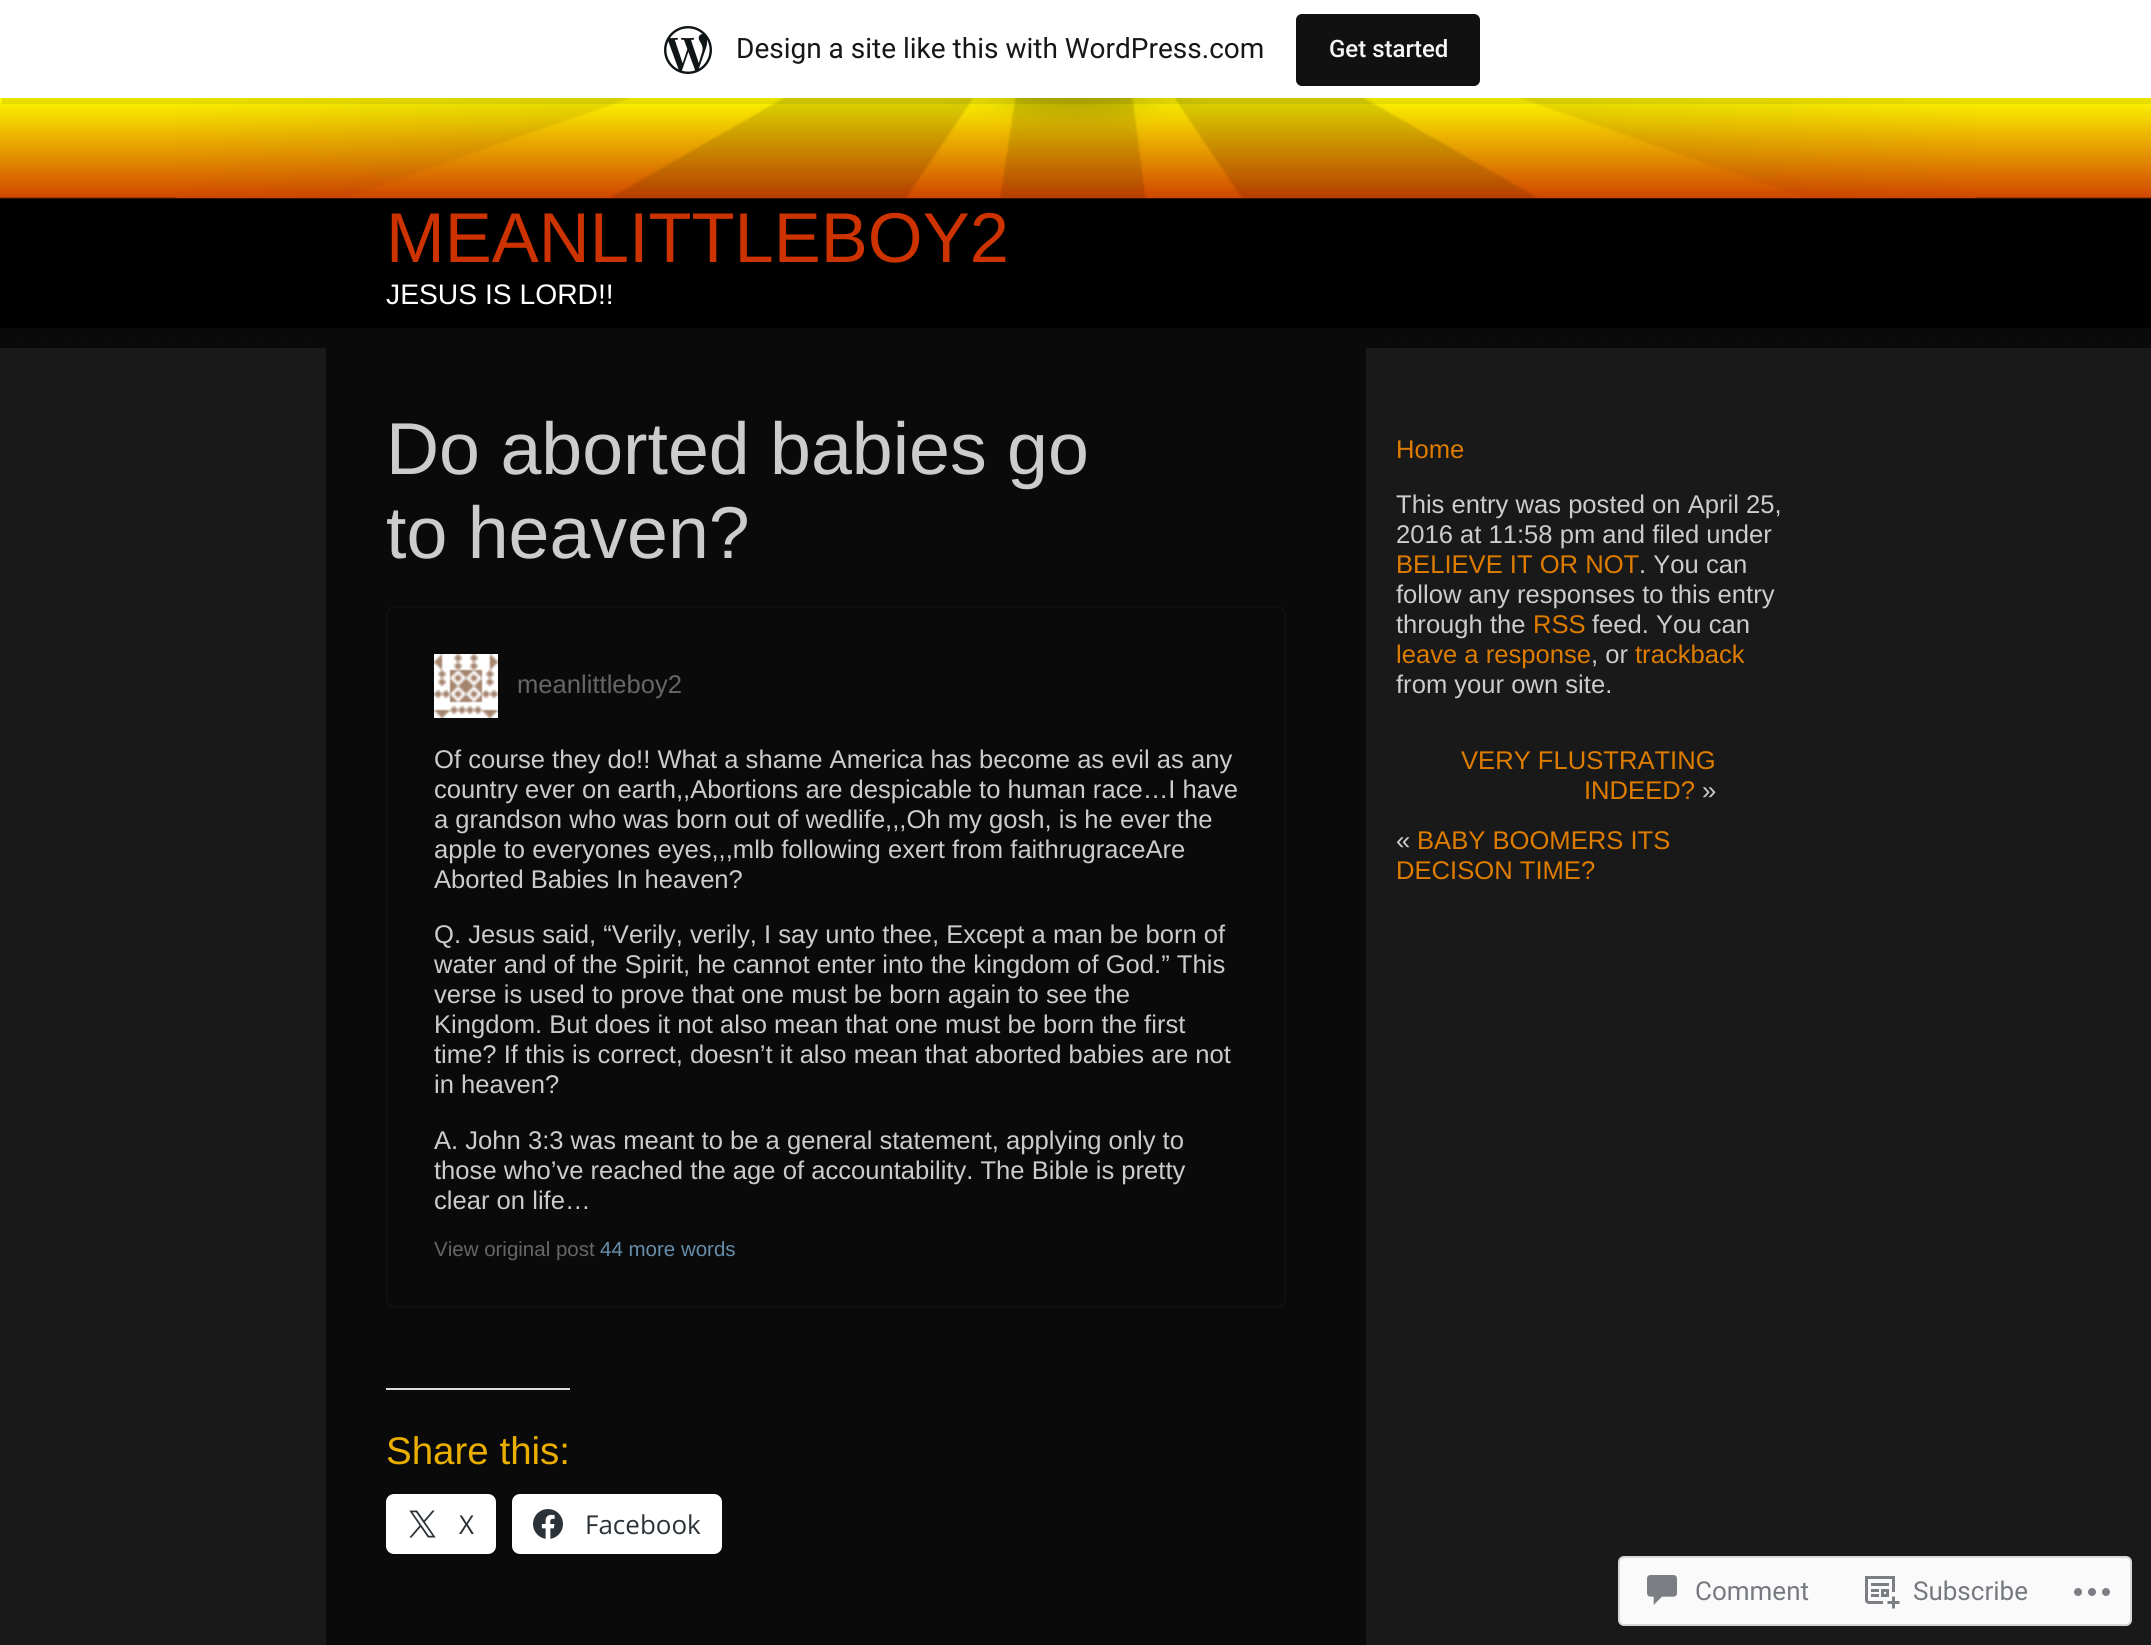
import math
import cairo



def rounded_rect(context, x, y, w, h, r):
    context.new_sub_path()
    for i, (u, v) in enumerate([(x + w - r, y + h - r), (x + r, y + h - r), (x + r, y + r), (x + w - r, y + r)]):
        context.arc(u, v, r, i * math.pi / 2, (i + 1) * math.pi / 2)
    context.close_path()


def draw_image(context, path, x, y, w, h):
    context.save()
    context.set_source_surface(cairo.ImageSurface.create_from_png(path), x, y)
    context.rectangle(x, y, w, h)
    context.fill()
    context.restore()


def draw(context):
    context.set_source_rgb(25 / 255, 25 / 255, 25 / 255)
    context.paint()
    draw_image(context, "images/2.png", 0, 98, 2151, 250)
    draw_image(context, "images/3.png", 176, 98, 1800, 100)
    context.set_source_rgba(0, 0, 0, 0.08)
    context.new_path()
    context.move_to(2, 98)
    context.line_to(2, 104)
    context.line_to(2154, 104)
    context.line_to(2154, 6)
    context.line_to(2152, 6)
    context.line_to(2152, 98)
    context.close_path()
    context.fill()
    context.set_source_rgb(1, 1, 1)
    context.rectangle(0, 0, 2151, 98)
    context.fill()
    draw_image(context, "images/1.png", 664, 26, 48, 48)
    context.set_source_rgb(17 / 255, 17 / 255, 17 / 255)
    rounded_rect(context, 1296, 14, 184, 72, 6)
    context.fill()
    context.set_source_rgb(10 / 255, 10 / 255, 10 / 255)
    context.rectangle(326, 328, 1040, 1317)
    context.fill()
    rounded_rect(context, 387, 607, 898, 700, 7)
    context.set_source_rgb(14 / 255, 16 / 255, 17 / 255)
    context.stroke()
    draw_image(context, "images/4.png", 434, 654, 64, 64)
    context.set_source_rgb(220 / 255, 220 / 255, 222 / 255)
    context.rectangle(386, 1388, 184, 2)
    context.fill()
    context.set_source_rgb(1, 1, 1)
    rounded_rect(context, 386, 1494, 110, 60, 8)
    context.fill()
    draw_image(context, "images/5.png", 409, 1510, 27, 28)
    rounded_rect(context, 512, 1494, 210, 60, 8)
    context.fill()
    draw_image(context, "images/6.png", 533, 1509, 30, 30)
    context.set_source_rgb(250 / 255, 250 / 255, 250 / 255)
    rounded_rect(context, 1619, 1557, 512, 68, 5)
    context.fill_preserve()
    context.set_source_rgb(216 / 255, 216 / 255, 218 / 255)
    context.stroke()
    draw_image(context, "images/7.png", 1647, 1575, 30, 30)
    draw_image(context, "images/8.png", 1865, 1576, 35, 33)
    draw_image(context, "images/9.png", 2074, 1588, 36, 8)
    context.select_font_face("Roboto")
    context.set_font_size(28)
    context.set_source_rgb(23 / 255, 23 / 255, 23 / 255)
    context.move_to(736, 58)
    context.show_text("Design a site like this with WordPress.com")
    context.select_font_face("Roboto Medium")
    context.set_font_size(24)
    context.set_source_rgb(246 / 255, 247 / 255, 247 / 255)
    context.move_to(1329, 57)
    context.show_text("Get started")
    context.select_font_face("Liberation Sans")
    context.set_font_size(70.5)
    context.set_source_rgb(204 / 255, 51 / 255, 0)
    context.move_to(386, 262)
    context.show_text("MEANLITTLEBOY2")
    context.set_font_size(28.25)
    context.set_source_rgb(1, 1, 1)
    context.move_to(386, 304)
    context.show_text("JESUS IS LORD!!")
    context.set_font_size(73.5)
    context.set_source_rgb(204 / 255, 204 / 255, 204 / 255)
    context.move_to(386, 474)
    context.show_text("Do aborted babies go")
    context.move_to(386, 558)
    context.show_text("to heaven?")
    context.set_font_size(25.6)
    context.set_source_rgb(102 / 255, 102 / 255, 102 / 255)
    context.move_to(517, 693)
    context.show_text("meanlittleboy2")
    context.set_source_rgb(204 / 255, 204 / 255, 204 / 255)
    context.move_to(434, 768)
    context.show_text("Of course they do!! What a shame America has become as evil as any")
    context.move_to(434, 798)
    context.show_text("country ever on earth,,Abortions are despicable to human race…I have")
    context.move_to(434, 828)
    context.show_text("a grandson who was born out of wedlife,,,Oh my gosh, is he ever the")
    context.move_to(434, 858)
    context.show_text("apple to everyones eyes,,,mlb following exert from faithrugraceAre")
    context.move_to(434, 888)
    context.show_text("Aborted Babies In heaven?")
    context.move_to(434, 943)
    context.show_text("Q. Jesus said, “Verily, verily, I say unto thee, Except a man be born of")
    context.move_to(434, 973)
    context.show_text("water and of the Spirit, he cannot enter into the kingdom of God.” This")
    context.move_to(434, 1003)
    context.show_text("verse is used to prove that one must be born again to see the")
    context.move_to(434, 1033)
    context.show_text("Kingdom. But does it not also mean that one must be born the first")
    context.move_to(434, 1063)
    context.show_text("time? If this is correct, doesn’t it also mean that aborted babies are not")
    context.move_to(434, 1093)
    context.show_text("in heaven?")
    context.move_to(434, 1149)
    context.show_text("A. John 3:3 was meant to be a general statement, applying only to")
    context.move_to(434, 1179)
    context.show_text("those who’ve reached the age of accountability. The Bible is pretty")
    context.move_to(434, 1209)
    context.show_text("clear on life…")
    context.set_font_size(20.5)
    context.set_source_rgb(102 / 255, 102 / 255, 102 / 255)
    context.move_to(434, 1256)
    context.show_text("View original post")
    context.set_source_rgb(102 / 255, 142 / 255, 170 / 255)
    context.move_to(600, 1256)
    context.show_text("44 more words")
    context.set_font_size(38.5)
    context.set_source_rgb(235 / 255, 175 / 255, 0)
    context.move_to(386, 1464)
    context.show_text("Share this:")
    context.select_font_face("Open Sans")
    context.set_font_size(26)
    context.set_source_rgb(44 / 255, 51 / 255, 56 / 255)
    context.move_to(459, 1534)
    context.show_text("X")
    context.move_to(585, 1534)
    context.show_text("Facebook")
    context.select_font_face("Liberation Sans")
    context.set_font_size(25.6)
    context.set_source_rgb(222 / 255, 124 / 255, 0)
    context.move_to(1396, 458)
    context.show_text("Home")
    context.set_source_rgb(204 / 255, 204 / 255, 204 / 255)
    context.move_to(1396, 513)
    context.show_text("This entry was posted on April 25,")
    context.move_to(1396, 543)
    context.show_text("2016 at 11:58 pm and filed under")
    context.set_source_rgb(222 / 255, 124 / 255, 0)
    context.move_to(1396, 573)
    context.show_text("BELIEVE IT OR NOT")
    context.set_source_rgb(204 / 255, 204 / 255, 204 / 255)
    context.move_to(1639, 573)
    context.show_text(". You can")
    context.move_to(1396, 603)
    context.show_text("follow any responses to this entry")
    context.move_to(1396, 633)
    context.show_text("through the")
    context.set_source_rgb(222 / 255, 124 / 255, 0)
    context.move_to(1533, 633)
    context.show_text("RSS")
    context.set_source_rgb(204 / 255, 204 / 255, 204 / 255)
    context.move_to(1592, 633)
    context.show_text("feed. You can")
    context.set_source_rgb(222 / 255, 124 / 255, 0)
    context.move_to(1396, 663)
    context.show_text("leave a response")
    context.set_source_rgb(204 / 255, 204 / 255, 204 / 255)
    context.move_to(1591, 663)
    context.show_text(", or")
    context.set_source_rgb(222 / 255, 124 / 255, 0)
    context.move_to(1635, 663)
    context.show_text("trackback")
    context.set_source_rgb(204 / 255, 204 / 255, 204 / 255)
    context.move_to(1396, 693)
    context.show_text("from your own site.")
    context.set_source_rgb(222 / 255, 124 / 255, 0)
    context.move_to(1461, 769)
    context.show_text("VERY FLUSTRATING")
    context.move_to(1584, 799)
    context.show_text("INDEED?")
    context.set_source_rgb(204 / 255, 204 / 255, 204 / 255)
    context.move_to(1702, 799)
    context.show_text("»")
    context.move_to(1396, 849)
    context.show_text("«")
    context.set_source_rgb(222 / 255, 124 / 255, 0)
    context.move_to(1417, 849)
    context.show_text("BABY BOOMERS ITS")
    context.move_to(1396, 879)
    context.show_text("DECISON TIME?")
    context.select_font_face("Roboto")
    context.set_font_size(26)
    context.set_source_rgb(118 / 255, 122 / 255, 128 / 255)
    context.move_to(1695, 1600)
    context.show_text("Comment")
    context.move_to(1913, 1600)
    context.show_text("Subscribe")


surface = cairo.ImageSurface(cairo.Format.RGB24, 2151, 1645)
context = cairo.Context(surface)
options = cairo.FontOptions()
options.set_hint_metrics(cairo.HintMetrics.OFF)
options.set_hint_style(cairo.HintStyle.NONE)
context.set_font_options(options)
context.set_miter_limit(4)
draw(context)
surface.write_to_png("out.png")
